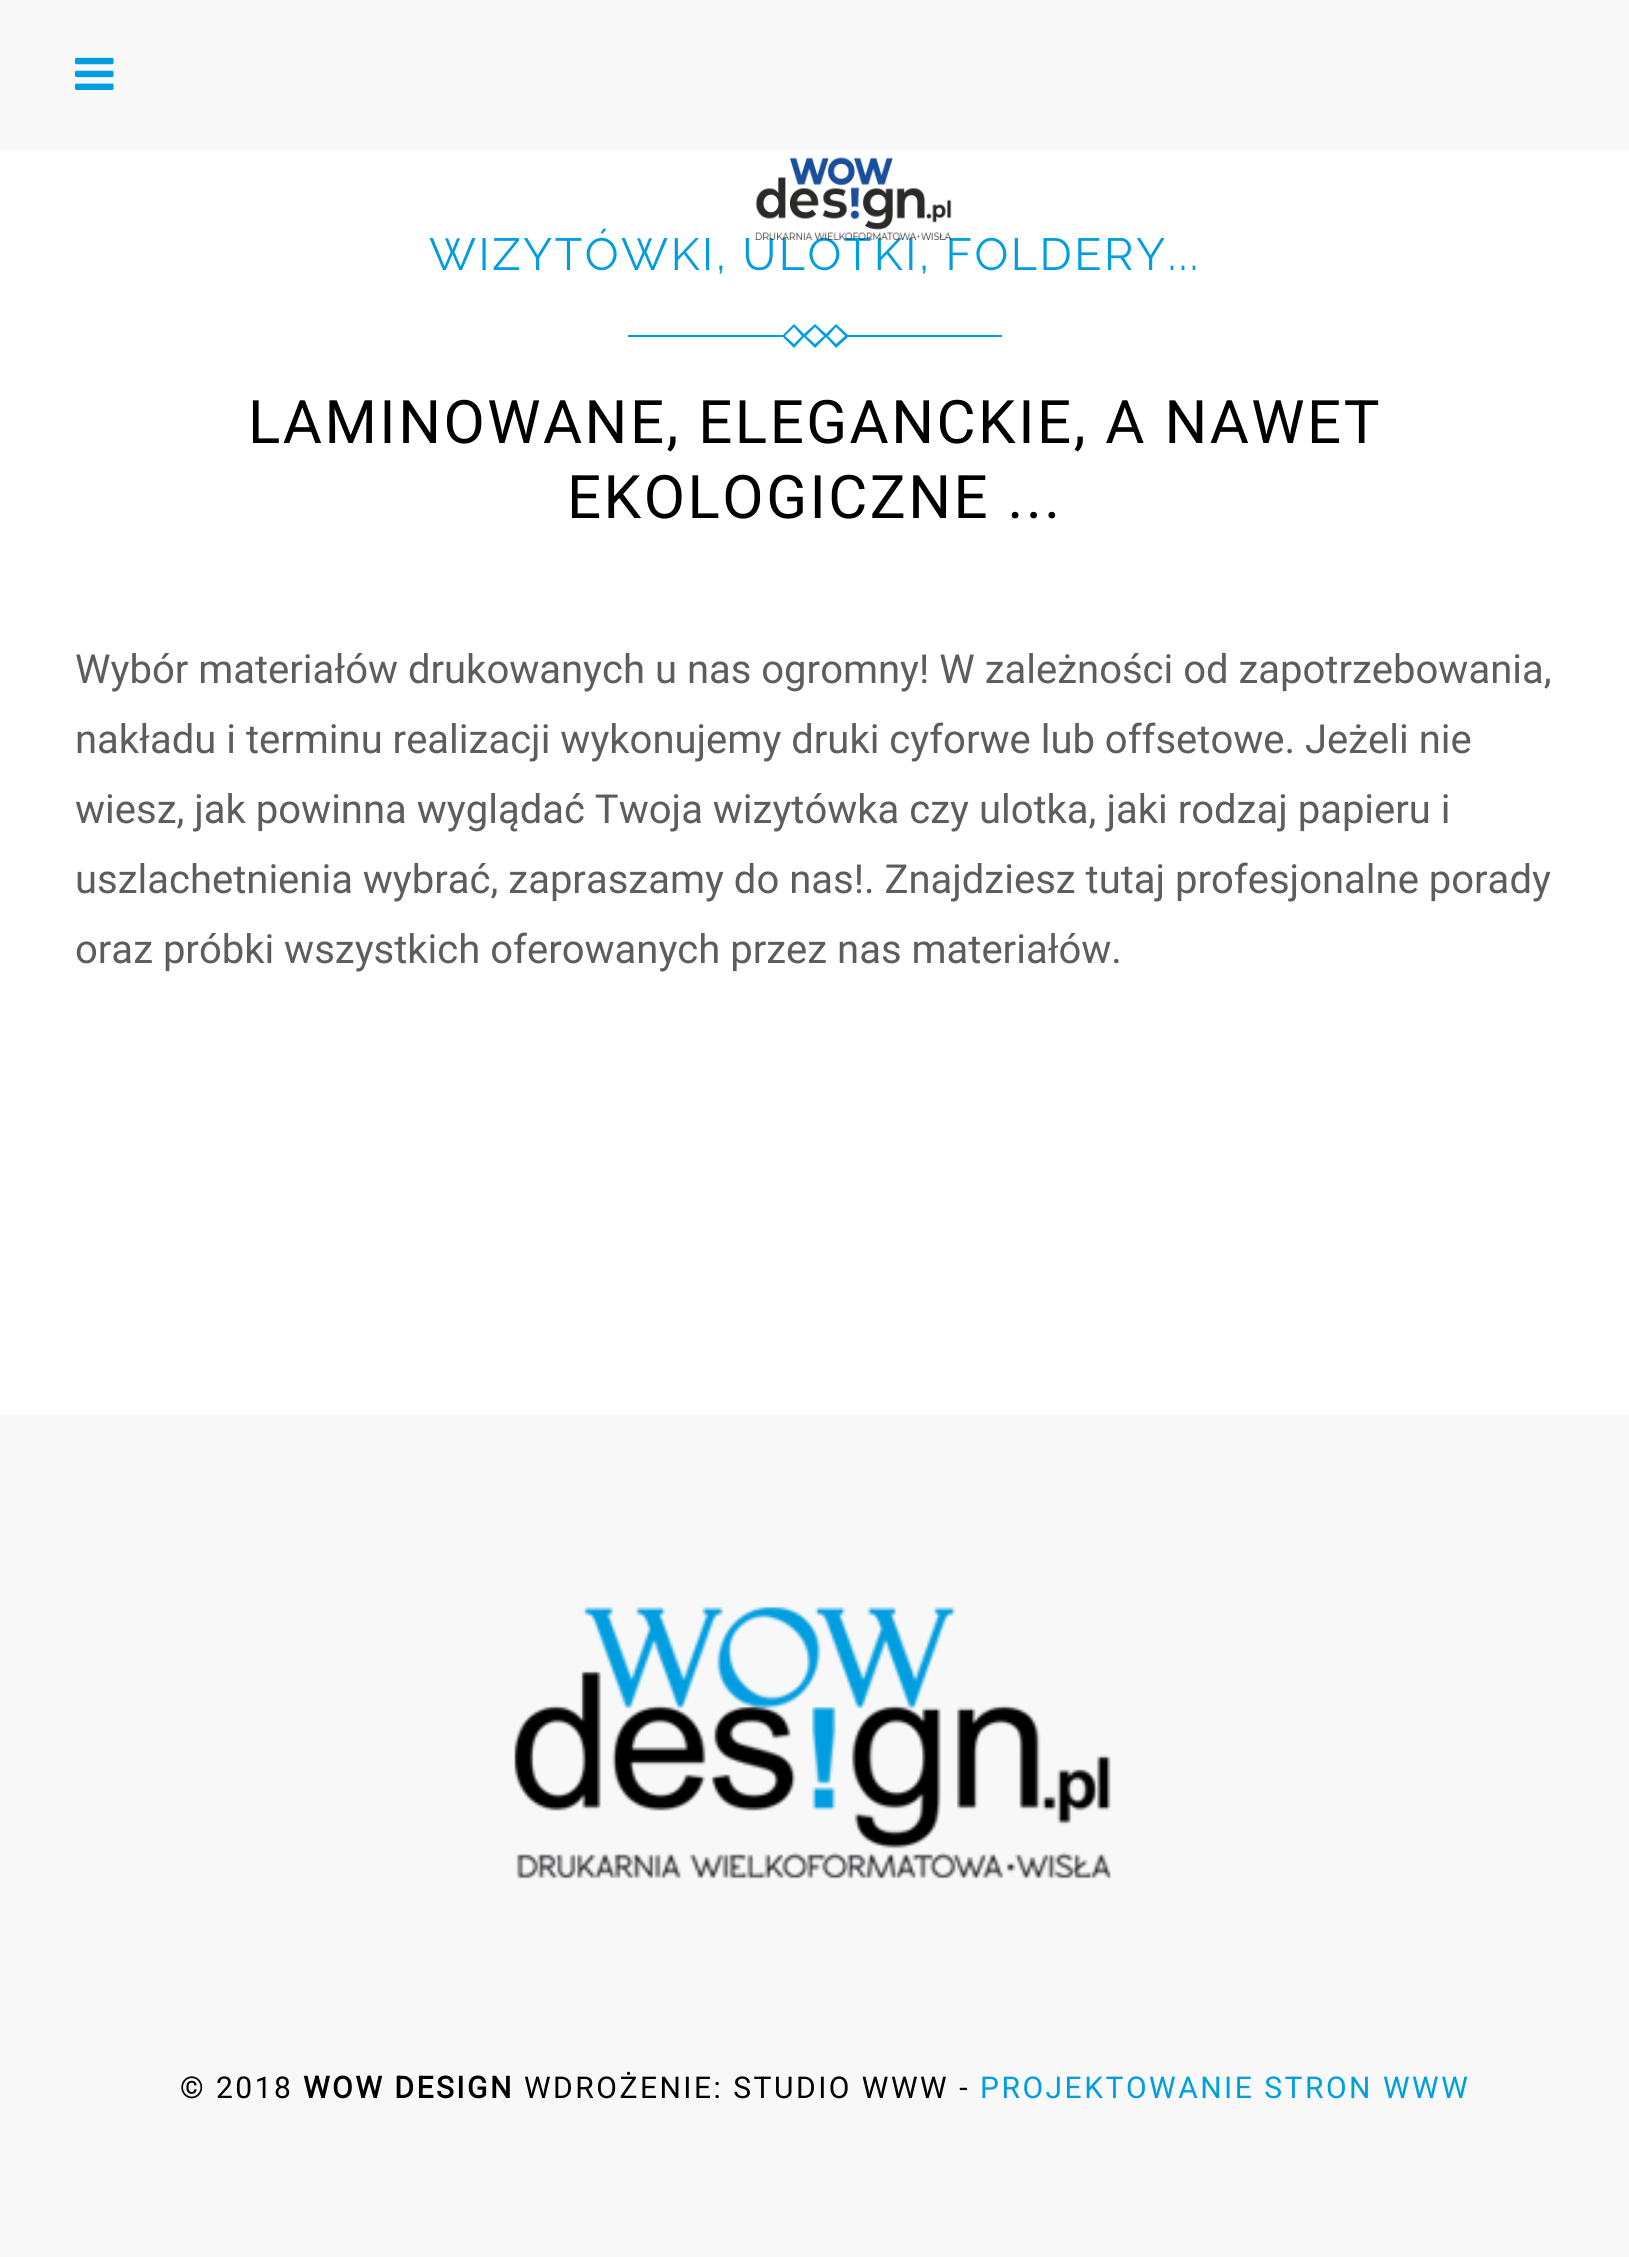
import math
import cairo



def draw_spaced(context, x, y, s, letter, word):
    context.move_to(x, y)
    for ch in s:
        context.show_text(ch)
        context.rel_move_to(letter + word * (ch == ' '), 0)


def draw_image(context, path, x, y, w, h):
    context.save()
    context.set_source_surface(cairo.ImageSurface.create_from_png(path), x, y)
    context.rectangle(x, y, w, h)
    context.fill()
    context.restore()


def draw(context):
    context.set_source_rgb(1, 1, 1)
    context.paint()
    context.set_source_rgb(248 / 255, 248 / 255, 248 / 255)
    context.rectangle(0, 0, 1629, 150)
    context.fill()
    draw_image(context, "images/1.png", 75, 57, 39, 33)
    context.set_source_rgb(0, 158 / 255, 224 / 255)
    context.new_path()
    context.move_to(848, 335)
    context.line_to(836, 324)
    context.line_to(826, 334)
    context.line_to(815, 324)
    context.line_to(804, 334)
    context.line_to(794, 324)
    context.line_to(783, 335)
    context.line_to(628, 335)
    context.line_to(628, 337)
    context.line_to(783, 337)
    context.line_to(794, 348)
    context.line_to(804, 337)
    context.line_to(815, 348)
    context.line_to(826, 337)
    context.line_to(836, 348)
    context.line_to(848, 337)
    context.line_to(1002, 337)
    context.line_to(1002, 335)
    context.close_path()
    context.move_to(794, 344)
    context.line_to(785, 336)
    context.line_to(794, 327)
    context.line_to(802, 336)
    context.close_path()
    context.move_to(815, 344)
    context.line_to(806, 336)
    context.line_to(815, 327)
    context.line_to(824, 336)
    context.close_path()
    context.move_to(836, 344)
    context.line_to(828, 336)
    context.line_to(836, 327)
    context.line_to(845, 336)
    context.close_path()
    context.fill()
    context.set_source_rgb(248 / 255, 248 / 255, 248 / 255)
    context.rectangle(0, 1415, 1629, 842)
    context.fill()
    draw_image(context, "images/3.png", 514, 1606, 597, 273)
    context.select_font_face("Raleway")
    context.set_font_size(45)
    context.set_source_rgb(0, 158 / 255, 224 / 255)
    draw_spaced(context, 429, 270, "WIZYTÓWKI, ULOTKI, FOLDERY...", 2.5, 0)
    draw_image(context, "images/2.png", 755, 157, 197, 84)
    context.select_font_face("Roboto")
    context.set_font_size(60)
    context.set_source_rgb(0, 0, 0)
    draw_spaced(context, 248, 443, "LAMINOWANE, ELEGANCKIE, A NAWET", 2.5, 0)
    draw_spaced(context, 567, 518, "EKOLOGICZNE ...", 2.5, 0)
    context.set_font_size(40)
    context.set_source_rgb(93 / 255, 93 / 255, 93 / 255)
    context.move_to(75, 683)
    context.show_text("Wybór materiałów drukowanych u nas ogromny! W zależności od zapotrzebowania,")
    context.move_to(75, 753)
    context.show_text("nakładu i terminu realizacji wykonujemy druki cyforwe lub offsetowe. Jeżeli nie")
    context.move_to(75, 823)
    context.show_text("wiesz, jak powinna wyglądać Twoja wizytówka czy ulotka, jaki rodzaj papieru i")
    context.move_to(75, 893)
    context.show_text("uszlachetnienia wybrać, zapraszamy do nas!. Znajdziesz tutaj profesjonalne porady")
    context.move_to(75, 963)
    context.show_text("oraz próbki wszystkich oferowanych przez nas materiałów.")
    context.set_font_size(30)
    context.set_source_rgb(0, 0, 0)
    draw_spaced(context, 180, 2098, "© 2018", 2.5, 0)
    context.select_font_face("Roboto", cairo.FontSlant.NORMAL, cairo.FontWeight.BOLD)
    draw_spaced(context, 303, 2098, "WOW DESIGN", 2.5, 0)
    context.select_font_face("Roboto")
    draw_spaced(context, 524, 2098, "WDROŻENIE: STUDIO WWW -", 2.5, 0)
    context.set_source_rgb(0, 158 / 255, 224 / 255)
    draw_spaced(context, 980, 2098, "PROJEKTOWANIE STRON WWW", 2.5, 0)


surface = cairo.ImageSurface(cairo.Format.RGB24, 1629, 2257)
context = cairo.Context(surface)
options = cairo.FontOptions()
options.set_hint_metrics(cairo.HintMetrics.OFF)
options.set_hint_style(cairo.HintStyle.NONE)
context.set_font_options(options)
context.set_miter_limit(4)
draw(context)
surface.write_to_png("out.png")
